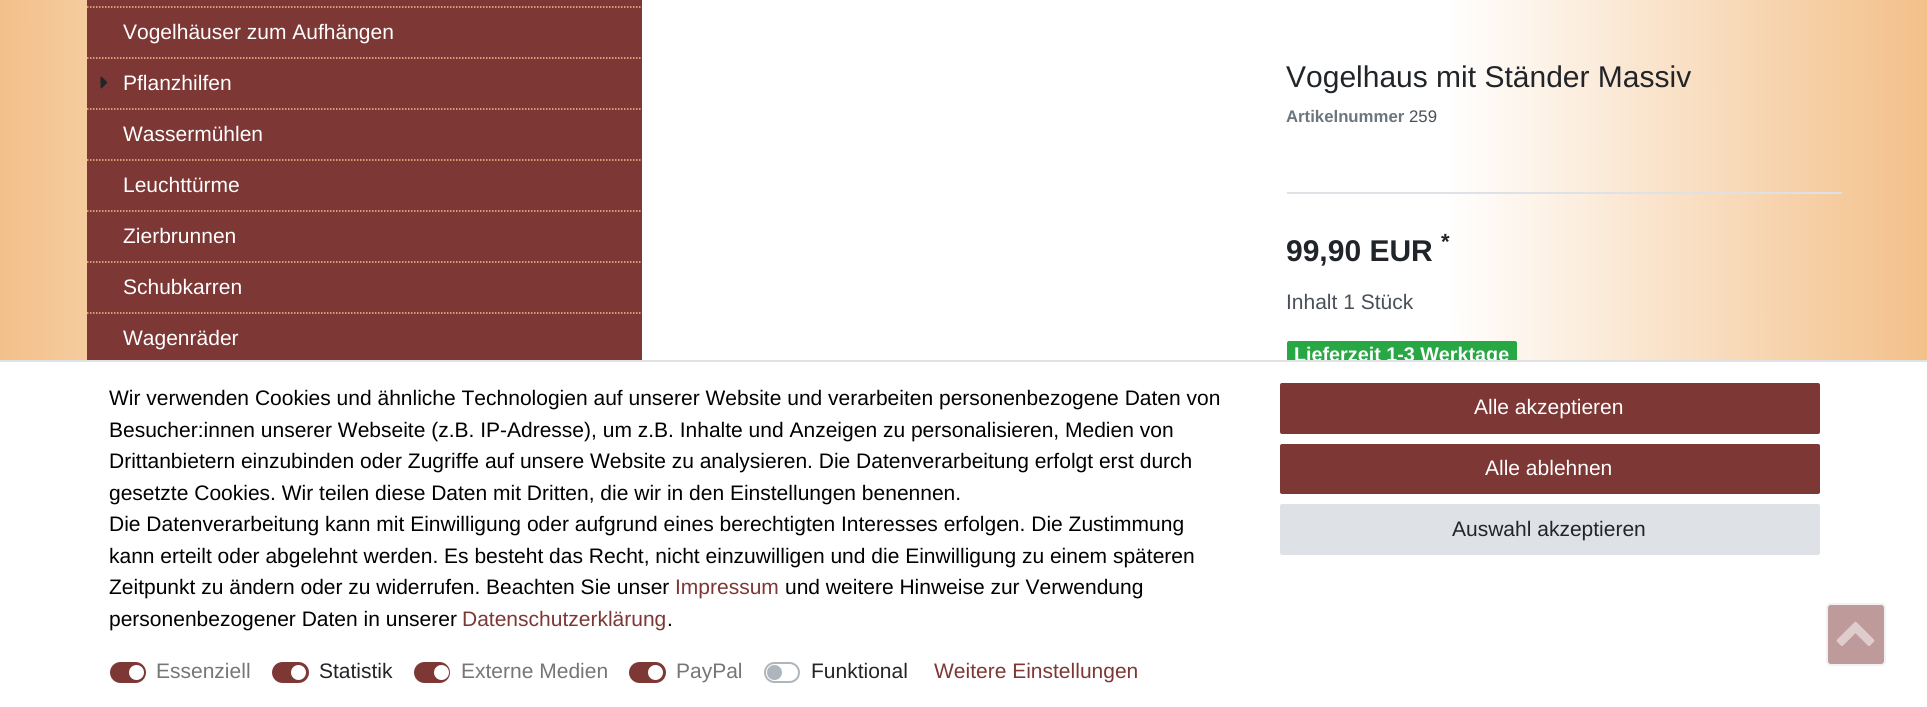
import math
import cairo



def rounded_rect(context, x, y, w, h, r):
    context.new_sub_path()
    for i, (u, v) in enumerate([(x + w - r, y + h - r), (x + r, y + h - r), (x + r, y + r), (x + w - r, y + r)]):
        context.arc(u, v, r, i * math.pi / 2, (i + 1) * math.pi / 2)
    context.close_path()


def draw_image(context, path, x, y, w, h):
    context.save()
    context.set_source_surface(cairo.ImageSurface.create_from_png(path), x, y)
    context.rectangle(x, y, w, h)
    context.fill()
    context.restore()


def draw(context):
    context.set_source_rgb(1, 1, 1)
    context.paint()
    gradient = cairo.LinearGradient(0, 368, 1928, 367)
    gradient.add_color_stop_rgba(0, 243 / 255, 192 / 255, 137 / 255, 1)
    gradient.add_color_stop_rgba(0.25, 1, 1, 1, 1)
    gradient.add_color_stop_rgba(0.75, 1, 1, 1, 1)
    gradient.add_color_stop_rgba(1, 243 / 255, 192 / 255, 137 / 255, 1)
    context.set_source(gradient)
    context.rectangle(0, 0, 1927, 360)
    context.fill()
    context.set_source_rgb(125 / 255, 55 / 255, 53 / 255)
    context.rectangle(87, 0, 555, 360)
    context.fill()
    context.new_path()
    context.move_to(87, 7)
    context.line_to(642, 7)
    context.set_source_rgb(243 / 255, 192 / 255, 137 / 255)
    context.set_line_width(1.5)
    context.set_dash([1.5, 1.5])
    context.stroke()
    context.new_path()
    context.move_to(87, 58)
    context.line_to(642, 58)
    context.stroke()
    draw_image(context, "images/1.png", 100, 76, 8, 13)
    context.new_path()
    context.move_to(87, 109)
    context.line_to(642, 109)
    context.stroke()
    context.new_path()
    context.move_to(87, 160)
    context.line_to(642, 160)
    context.stroke()
    context.new_path()
    context.move_to(87, 211)
    context.line_to(642, 211)
    context.stroke()
    context.new_path()
    context.move_to(87, 262)
    context.line_to(642, 262)
    context.stroke()
    context.new_path()
    context.move_to(87, 313)
    context.line_to(642, 313)
    context.stroke()
    context.set_source_rgb(222 / 255, 226 / 255, 230 / 255)
    context.rectangle(1287, 192, 555, 2)
    context.fill()
    context.set_source_rgb(40 / 255, 167 / 255, 69 / 255)
    rounded_rect(context, 1287, 341, 230, 28, 2)
    context.fill()
    context.set_source_rgb(1, 1, 1)
    context.rectangle(1287, 362, 230, 7)
    context.fill()
    context.set_source_rgb(125 / 255, 55 / 255, 53 / 255)
    rounded_rect(context, 111, 663, 34, 19, 9.5)
    context.fill_preserve()
    context.set_line_width(2)
    context.set_dash([])
    context.stroke()
    context.set_source_rgb(1, 1, 1)
    context.arc(136.5, 672.5, 7.5, 0, 2 * math.pi)
    context.fill()
    context.set_source_rgb(125 / 255, 55 / 255, 53 / 255)
    rounded_rect(context, 273, 663, 35, 19, 9.5)
    context.fill_preserve()
    context.stroke()
    context.set_source_rgb(1, 1, 1)
    context.arc(298.5, 672.5, 7.5, 0, 2 * math.pi)
    context.fill()
    context.set_source_rgb(125 / 255, 55 / 255, 53 / 255)
    rounded_rect(context, 415, 663, 34, 19, 9.5)
    context.fill_preserve()
    context.stroke()
    context.set_source_rgb(1, 1, 1)
    context.arc(441.5, 672.5, 7.5, 0, 2 * math.pi)
    context.fill()
    context.set_source_rgb(125 / 255, 55 / 255, 53 / 255)
    rounded_rect(context, 630, 663, 35, 19, 9.5)
    context.fill_preserve()
    context.stroke()
    context.set_source_rgb(1, 1, 1)
    context.arc(655.5, 672.5, 7.5, 0, 2 * math.pi)
    context.fill()
    rounded_rect(context, 765, 663, 34, 19, 9.5)
    context.set_source_rgb(173 / 255, 181 / 255, 189 / 255)
    context.stroke()
    context.arc(774.5, 672.5, 7.5, 0, 2 * math.pi)
    context.fill()
    context.set_source_rgb(125 / 255, 55 / 255, 53 / 255)
    rounded_rect(context, 1281, 384, 538, 49, 1)
    context.fill_preserve()
    context.stroke()
    rounded_rect(context, 1281, 445, 538, 48, 1)
    context.fill_preserve()
    context.stroke()
    context.set_source_rgb(222 / 255, 226 / 255, 230 / 255)
    rounded_rect(context, 1281, 505, 538, 49, 1)
    context.fill_preserve()
    context.stroke()
    context.set_source_rgb(190 / 255, 155 / 255, 154 / 255)
    rounded_rect(context, 1827, 604, 58, 61, 4)
    context.fill_preserve()
    context.set_source_rgb(239 / 255, 241 / 255, 243 / 255)
    context.stroke()
    draw_image(context, "images/2.png", 1836, 621, 39, 25)
    context.select_font_face("Liberation Sans")
    context.set_font_size(21)
    context.set_source_rgb(1, 1, 1)
    context.move_to(123, 39)
    context.show_text("Vogelhäuser zum Aufhängen")
    context.move_to(123, 90)
    context.show_text("Pflanzhilfen")
    context.move_to(123, 141)
    context.show_text("Wassermühlen")
    context.move_to(123, 192)
    context.show_text("Leuchttürme")
    context.move_to(123, 243)
    context.show_text("Zierbrunnen")
    context.move_to(123, 294)
    context.show_text("Schubkarren")
    context.move_to(123, 345)
    context.show_text("Wagenräder")
    context.set_font_size(30)
    context.set_source_rgb(33 / 255, 37 / 255, 41 / 255)
    context.move_to(1286, 87)
    context.show_text("Vogelhaus mit Ständer Massiv")
    context.select_font_face("Liberation Sans", cairo.FontSlant.NORMAL, cairo.FontWeight.BOLD)
    context.set_font_size(16.75)
    context.set_source_rgb(108 / 255, 117 / 255, 125 / 255)
    context.move_to(1286, 122)
    context.show_text("Artikelnummer")
    context.select_font_face("Liberation Sans")
    context.set_source_rgb(73 / 255, 80 / 255, 87 / 255)
    context.move_to(1409, 122)
    context.show_text("259")
    context.select_font_face("Liberation Sans", cairo.FontSlant.NORMAL, cairo.FontWeight.BOLD)
    context.set_font_size(22)
    context.set_source_rgb(33 / 255, 37 / 255, 41 / 255)
    context.move_to(1441, 249)
    context.show_text("*")
    context.set_font_size(30)
    context.move_to(1286, 261)
    context.show_text("99,90 EUR")
    context.select_font_face("Liberation Sans")
    context.set_font_size(21)
    context.set_source_rgb(73 / 255, 80 / 255, 87 / 255)
    context.move_to(1286, 309)
    context.show_text("Inhalt 1 Stück")
    context.select_font_face("Liberation Sans", cairo.FontSlant.NORMAL, cairo.FontWeight.BOLD)
    context.set_font_size(19.75)
    context.set_source_rgb(1, 1, 1)
    context.move_to(1294, 361)
    context.show_text("Lieferzeit 1-3 Werktage")
    context.set_source_rgb(222 / 255, 226 / 255, 230 / 255)
    context.rectangle(0, 360, 1927, 2)
    context.fill()
    context.select_font_face("Liberation Sans")
    context.set_font_size(21)
    context.set_source_rgb(0, 0, 0)
    context.move_to(109, 405)
    context.show_text("Wir verwenden Cookies und ähnliche Technologien auf unserer Website und verarbeiten personenbezogene Daten von")
    context.move_to(109, 437)
    context.show_text("Besucher:innen unserer Webseite (z.B. IP-Adresse), um z.B. Inhalte und Anzeigen zu personalisieren, Medien von")
    context.move_to(109, 468)
    context.show_text("Drittanbietern einzubinden oder Zugriffe auf unsere Website zu analysieren. Die Datenverarbeitung erfolgt erst durch")
    context.move_to(109, 500)
    context.show_text("gesetzte Cookies. Wir teilen diese Daten mit Dritten, die wir in den Einstellungen benennen.")
    context.move_to(109, 531)
    context.show_text("Die Datenverarbeitung kann mit Einwilligung oder aufgrund eines berechtigten Interesses erfolgen. Die Zustimmung")
    context.move_to(109, 563)
    context.show_text("kann erteilt oder abgelehnt werden. Es besteht das Recht, nicht einzuwilligen und die Einwilligung zu einem späteren")
    context.move_to(109, 594)
    context.show_text("Zeitpunkt zu ändern oder zu widerrufen. Beachten Sie unser")
    context.set_source_rgb(125 / 255, 55 / 255, 53 / 255)
    context.move_to(675, 594)
    context.show_text("Impressum")
    context.set_source_rgb(0, 0, 0)
    context.move_to(785, 594)
    context.show_text("und weitere Hinweise zur Verwendung")
    context.move_to(109, 626)
    context.show_text("personenbezogener Daten in unserer")
    context.set_source_rgb(125 / 255, 55 / 255, 53 / 255)
    context.move_to(462, 626)
    context.show_text("Datenschutzerklärung")
    context.set_source_rgb(0, 0, 0)
    context.move_to(667, 626)
    context.show_text(".")
    context.set_source_rgb(118 / 255, 118 / 255, 118 / 255)
    context.move_to(156, 678)
    context.show_text("Essenziell")
    context.set_source_rgb(33 / 255, 37 / 255, 41 / 255)
    context.move_to(319, 678)
    context.show_text("Statistik")
    context.set_source_rgb(118 / 255, 118 / 255, 118 / 255)
    context.move_to(461, 678)
    context.show_text("Externe Medien")
    context.move_to(676, 678)
    context.show_text("PayPal")
    context.set_source_rgb(33 / 255, 37 / 255, 41 / 255)
    context.move_to(811, 678)
    context.show_text("Funktional")
    context.set_source_rgb(125 / 255, 55 / 255, 53 / 255)
    context.move_to(934, 678)
    context.show_text("Weitere Einstellungen")
    context.set_source_rgb(1, 1, 1)
    context.move_to(1474, 414)
    context.show_text("Alle akzeptieren")
    context.move_to(1485, 475)
    context.show_text("Alle ablehnen")
    context.set_source_rgb(33 / 255, 37 / 255, 41 / 255)
    context.move_to(1452, 536)
    context.show_text("Auswahl akzeptieren")


surface = cairo.ImageSurface(cairo.Format.RGB24, 1927, 707)
context = cairo.Context(surface)
options = cairo.FontOptions()
options.set_hint_metrics(cairo.HintMetrics.OFF)
options.set_hint_style(cairo.HintStyle.NONE)
context.set_font_options(options)
context.set_miter_limit(4)
draw(context)
surface.write_to_png("out.png")
